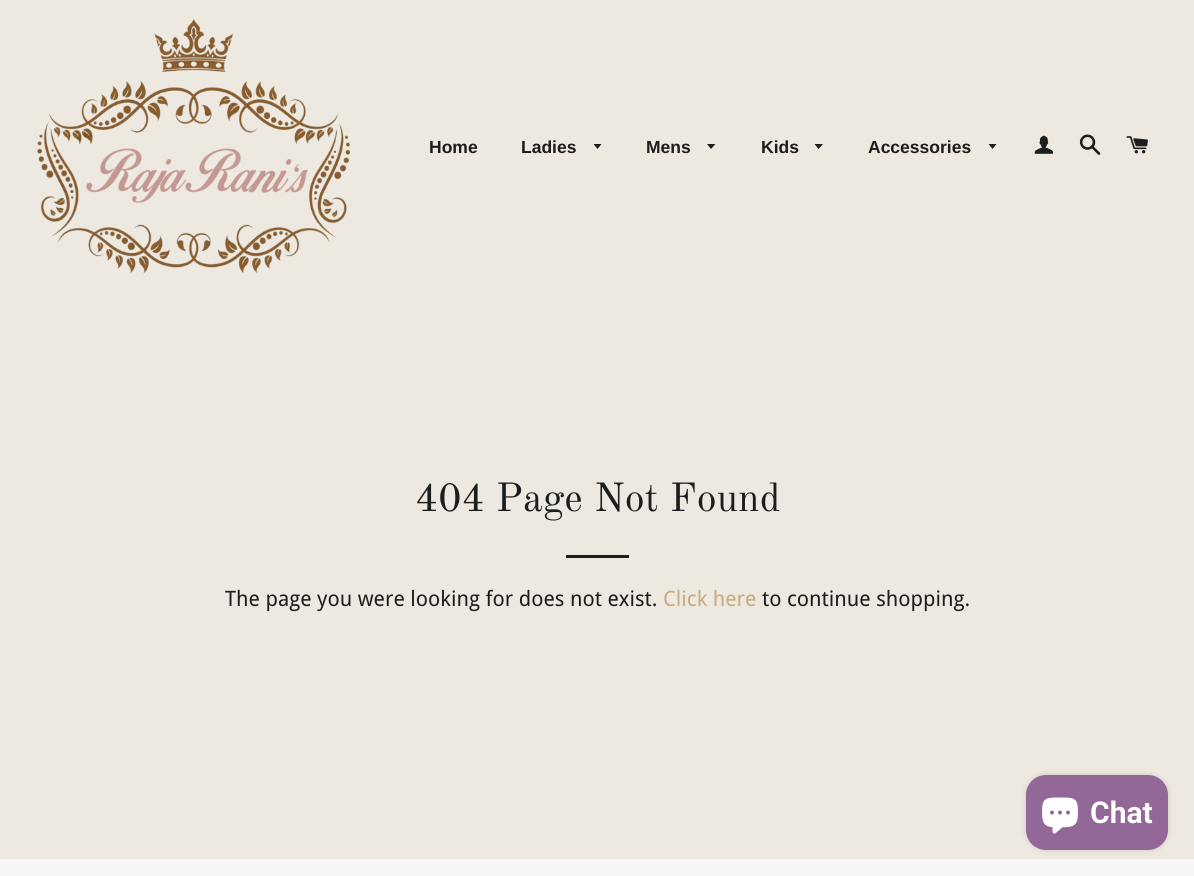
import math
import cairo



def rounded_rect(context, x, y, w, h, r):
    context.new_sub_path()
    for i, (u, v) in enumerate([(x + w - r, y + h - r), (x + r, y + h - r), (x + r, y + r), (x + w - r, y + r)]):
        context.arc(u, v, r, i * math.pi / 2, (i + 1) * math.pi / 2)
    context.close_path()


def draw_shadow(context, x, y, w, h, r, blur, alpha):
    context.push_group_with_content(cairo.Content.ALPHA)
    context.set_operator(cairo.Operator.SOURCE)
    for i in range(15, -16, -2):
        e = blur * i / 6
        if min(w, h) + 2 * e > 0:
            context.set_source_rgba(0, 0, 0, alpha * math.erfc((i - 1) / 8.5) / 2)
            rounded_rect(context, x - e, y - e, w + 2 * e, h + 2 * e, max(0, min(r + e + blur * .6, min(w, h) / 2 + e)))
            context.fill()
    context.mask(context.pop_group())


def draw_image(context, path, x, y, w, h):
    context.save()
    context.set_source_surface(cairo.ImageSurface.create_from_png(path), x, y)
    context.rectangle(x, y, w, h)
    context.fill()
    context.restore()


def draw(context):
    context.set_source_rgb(238 / 255, 233 / 255, 224 / 255)
    context.paint()
    draw_image(context, "images/1.png", 37, 19, 313, 255)
    context.set_source_rgb(28 / 255, 29 / 255, 29 / 255)
    context.new_path()
    context.move_to(593.5, 144)
    context.line_to(597.5, 149)
    context.line_to(601.5, 144)
    context.close_path()
    context.fill()
    context.new_path()
    context.move_to(707, 144)
    context.line_to(711, 149)
    context.line_to(715.5, 144)
    context.close_path()
    context.fill()
    context.new_path()
    context.move_to(814.5, 144)
    context.line_to(818.5, 149)
    context.line_to(823, 144)
    context.close_path()
    context.fill()
    context.new_path()
    context.move_to(988.5, 144)
    context.line_to(992.5, 149)
    context.line_to(996.5, 144)
    context.close_path()
    context.fill()
    draw_image(context, "images/2.png", 1034, 135, 19, 19)
    draw_image(context, "images/3.png", 1079, 134, 22, 21)
    draw_image(context, "images/4.png", 1126, 136, 22, 18)
    context.rectangle(566, 555, 63, 3)
    context.fill()
    context.set_source_rgb(246 / 255, 246 / 255, 246 / 255)
    context.rectangle(0, 859, 1194, 17)
    context.fill()
    context.set_source_rgb(0, 0, 0)
    draw_shadow(context, 1026, 775, 142, 75, 20, 3, 0.15)
    context.set_source_rgb(147 / 255, 103 / 255, 151 / 255)
    rounded_rect(context, 1026, 775, 142, 75, 20)
    context.fill()
    draw_image(context, "images/5.png", 1042, 797, 36, 37)
    context.select_font_face("Liberation Sans", cairo.FontSlant.NORMAL, cairo.FontWeight.BOLD)
    context.set_font_size(17.5)
    context.set_source_rgb(28 / 255, 29 / 255, 29 / 255)
    context.move_to(429, 153)
    context.show_text("Home")
    context.move_to(521, 153)
    context.show_text("Ladies")
    context.move_to(646, 153)
    context.show_text("Mens")
    context.move_to(761, 153)
    context.show_text("Kids")
    context.move_to(868, 153)
    context.show_text("Accessories")
    context.select_font_face("Old Standard TT")
    context.set_font_size(40)
    context.move_to(415, 511)
    context.show_text("404 Page Not Found")
    context.select_font_face("Droid Sans")
    context.set_font_size(21.25)
    context.move_to(225, 606)
    context.show_text("The page you were looking for does not exist.")
    context.set_source_rgb(199 / 255, 172 / 255, 127 / 255)
    context.move_to(663, 606)
    context.show_text("Click here")
    context.set_source_rgb(28 / 255, 29 / 255, 29 / 255)
    context.move_to(762, 606)
    context.show_text("to continue shopping.")
    context.select_font_face("Roboto", cairo.FontSlant.NORMAL, cairo.FontWeight.BOLD)
    context.set_font_size(30)
    context.set_source_rgb(1, 1, 1)
    context.move_to(1090, 823)
    context.show_text("Chat")


surface = cairo.ImageSurface(cairo.Format.RGB24, 1194, 876)
context = cairo.Context(surface)
options = cairo.FontOptions()
options.set_hint_metrics(cairo.HintMetrics.OFF)
options.set_hint_style(cairo.HintStyle.NONE)
context.set_font_options(options)
context.set_miter_limit(4)
draw(context)
surface.write_to_png("out.png")
